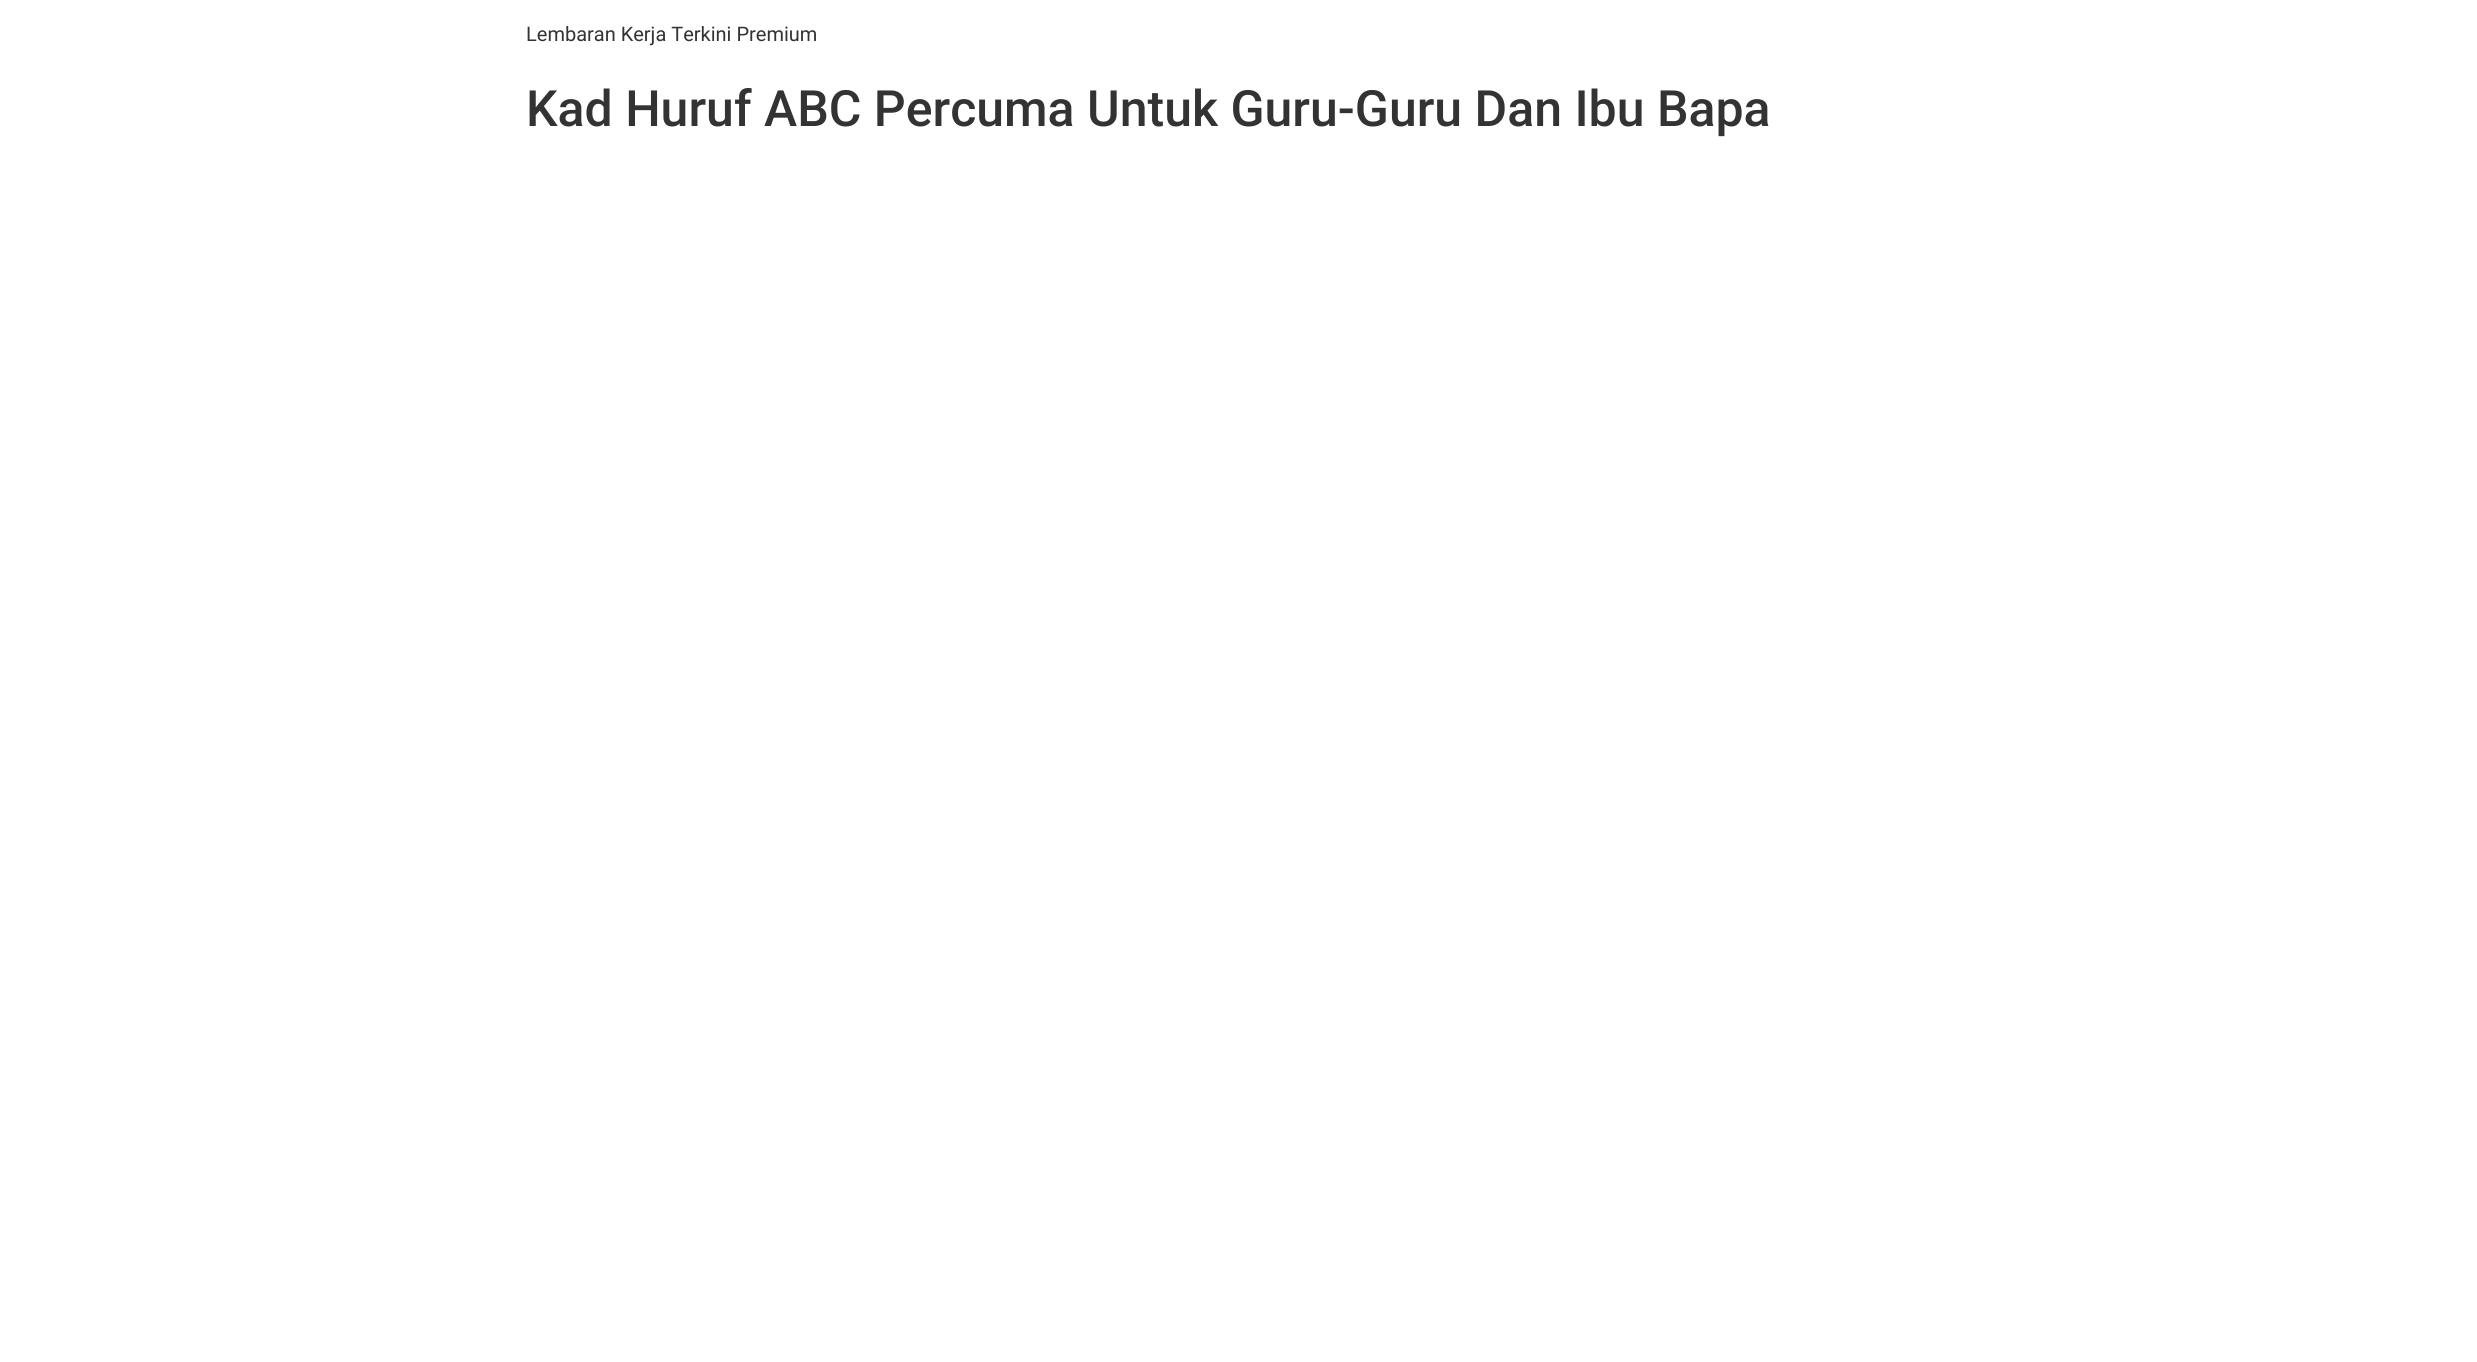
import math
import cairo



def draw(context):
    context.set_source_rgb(1, 1, 1)
    context.paint()
    context.select_font_face("Roboto")
    context.set_font_size(20)
    context.set_source_rgb(51 / 255, 51 / 255, 51 / 255)
    context.move_to(526, 41)
    context.show_text("Lembaran Kerja Terkini Premium")
    context.select_font_face("Roboto Medium")
    context.set_font_size(50)
    context.move_to(526, 126)
    context.show_text("Kad Huruf ABC Percuma Untuk Guru-Guru Dan Ibu Bapa")


surface = cairo.ImageSurface(cairo.Format.RGB24, 2477, 1362)
context = cairo.Context(surface)
options = cairo.FontOptions()
options.set_hint_metrics(cairo.HintMetrics.OFF)
options.set_hint_style(cairo.HintStyle.NONE)
context.set_font_options(options)
context.set_miter_limit(4)
draw(context)
surface.write_to_png("out.png")
